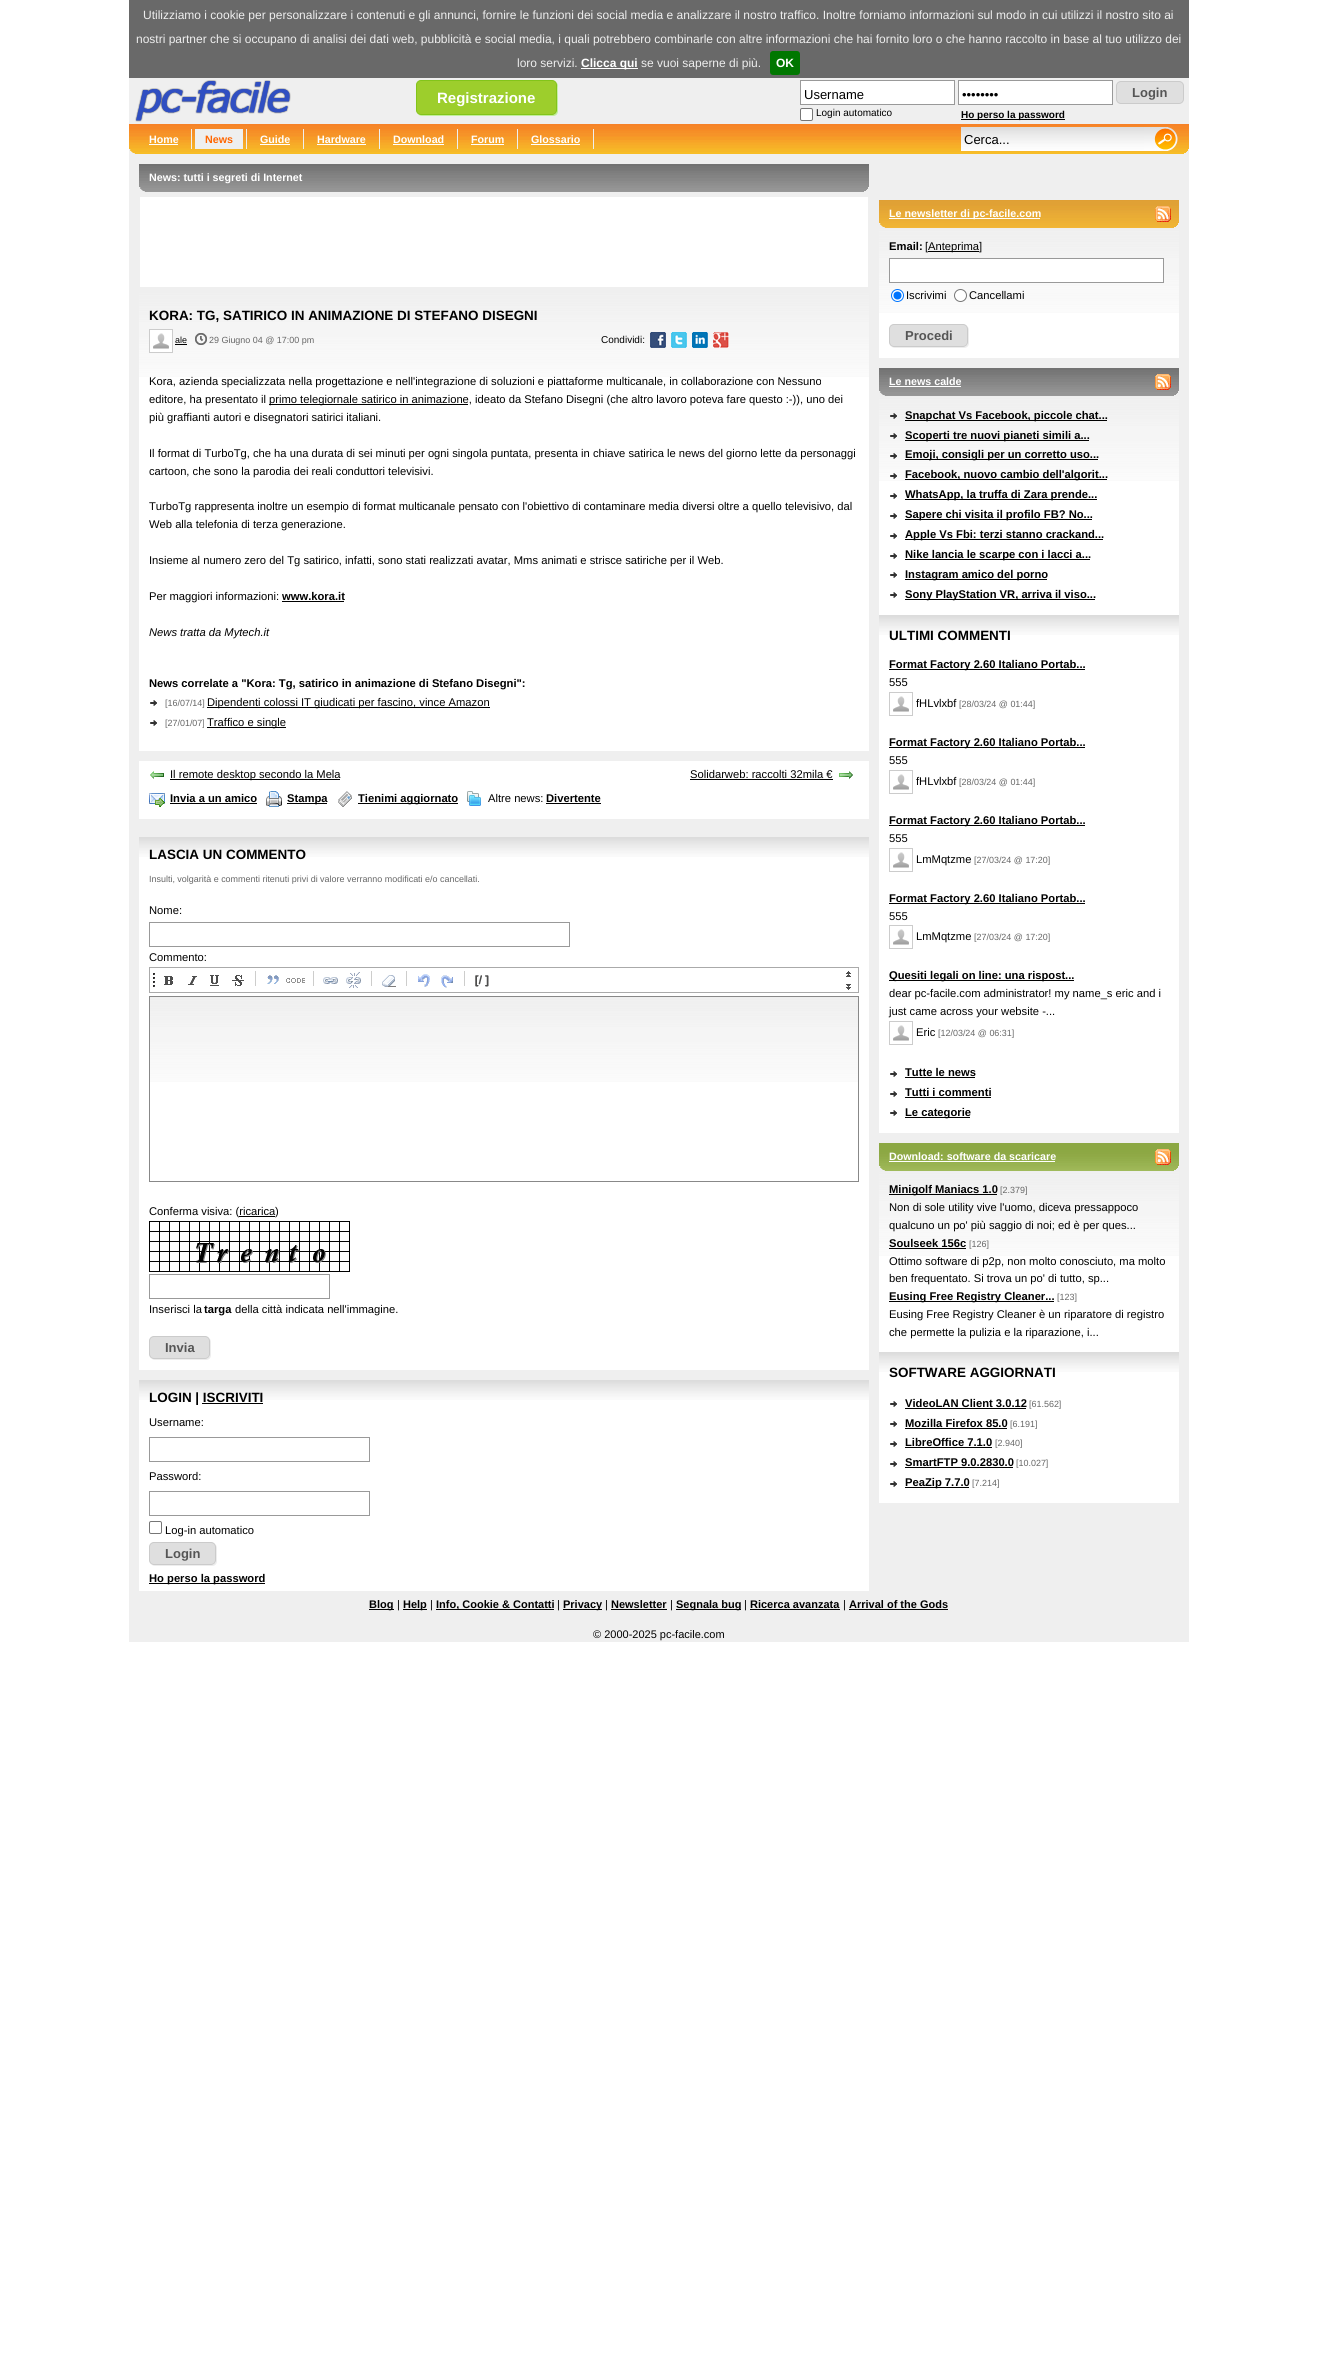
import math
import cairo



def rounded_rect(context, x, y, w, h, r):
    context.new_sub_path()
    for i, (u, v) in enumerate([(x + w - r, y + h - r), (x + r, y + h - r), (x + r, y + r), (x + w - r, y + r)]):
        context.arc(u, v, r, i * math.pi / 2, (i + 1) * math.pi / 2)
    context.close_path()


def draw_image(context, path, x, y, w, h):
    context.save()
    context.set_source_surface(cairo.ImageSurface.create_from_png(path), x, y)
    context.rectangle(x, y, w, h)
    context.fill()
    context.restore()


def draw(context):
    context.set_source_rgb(1, 1, 1)
    context.paint()
    context.set_source_rgb(105 / 255, 105 / 255, 105 / 255)
    context.rectangle(129, 0, 1060, 78)
    context.fill()
    context.set_source_rgb(1, 1, 1)
    context.rectangle(581, 68, 57, 1)
    context.fill()
    context.set_source_rgb(0, 119 / 255, 0)
    rounded_rect(context, 770, 51, 30, 24, 3)
    context.fill()
    context.set_source_rgb(239 / 255, 239 / 255, 239 / 255)
    context.rectangle(129, 78, 1060, 46)
    context.fill()
    draw_image(context, "images/1.png", 135, 80, 156, 42)
    context.set_source_rgb(193 / 255, 237 / 255, 156 / 255)
    context.new_path()
    context.move_to(418, 114)
    context.curve_to(419, 115, 420, 116, 422, 116)
    context.line_to(553, 116)
    context.curve_to(556, 116, 558, 114, 558, 111)
    context.line_to(558, 86)
    context.curve_to(558, 84, 557, 83, 556, 82)
    context.curve_to(558, 85, 557, 94, 557, 98)
    context.line_to(557, 106)
    context.curve_to(557, 110, 557, 115, 552, 115)
    context.line_to(420, 115)
    context.close_path()
    context.fill()
    context.set_source_rgb(157 / 255, 206 / 255, 44 / 255)
    rounded_rect(context, 416.5, 80.5, 140, 34, 4.5)
    context.fill_preserve()
    context.set_source_rgb(131 / 255, 196 / 255, 26 / 255)
    context.set_line_width(1)
    context.stroke()
    context.set_source_rgb(1, 1, 1)
    context.rectangle(800.5, 80.5, 154, 24)
    context.fill_preserve()
    context.set_source_rgb(153 / 255, 153 / 255, 153 / 255)
    context.stroke()
    context.set_source_rgb(1, 1, 1)
    context.rectangle(958.5, 80.5, 154, 24)
    context.fill_preserve()
    context.set_source_rgb(153 / 255, 153 / 255, 153 / 255)
    context.stroke()
    context.set_source_rgb(223 / 255, 223 / 255, 223 / 255)
    rounded_rect(context, 1116.5, 81.5, 67, 22, 4.5)
    context.fill_preserve()
    context.set_source_rgb(203 / 255, 203 / 255, 203 / 255)
    context.stroke()
    context.set_source_rgb(1, 1, 1)
    rounded_rect(context, 800.5, 108.5, 12, 12, 1.5)
    context.fill_preserve()
    context.set_source_rgb(118 / 255, 118 / 255, 118 / 255)
    context.stroke()
    context.set_source_rgb(0, 0, 0)
    context.rectangle(961, 119, 104, 1)
    context.fill()
    context.set_source_rgb(239 / 255, 239 / 255, 239 / 255)
    context.rectangle(129, 154, 1060, 1488)
    context.fill()
    draw_image(context, "images/2.png", 129, 124, 1060, 30)
    draw_image(context, "images/3.png", 1184, 149, 5, 5)
    draw_image(context, "images/4.png", 129, 149, 6, 5)
    context.set_source_rgb(238 / 255, 239 / 255, 239 / 255)
    context.rectangle(191, 129, 1, 20)
    context.fill()
    context.set_source_rgb(1, 1, 1)
    context.rectangle(149, 144, 29, 1)
    context.fill()
    context.set_source_rgb(238 / 255, 239 / 255, 239 / 255)
    context.rectangle(246, 129, 1, 20)
    context.fill()
    context.rectangle(195, 129, 48, 20)
    context.fill()
    context.rectangle(303, 129, 1, 20)
    context.fill()
    context.set_source_rgb(1, 1, 1)
    context.rectangle(260, 144, 30, 1)
    context.fill()
    context.set_source_rgb(238 / 255, 239 / 255, 239 / 255)
    context.rectangle(379, 129, 1, 20)
    context.fill()
    context.set_source_rgb(1, 1, 1)
    context.rectangle(317, 144, 49, 1)
    context.fill()
    context.set_source_rgb(238 / 255, 239 / 255, 239 / 255)
    context.rectangle(457, 129, 1, 20)
    context.fill()
    context.set_source_rgb(1, 1, 1)
    context.rectangle(393, 144, 51, 1)
    context.fill()
    context.set_source_rgb(238 / 255, 239 / 255, 239 / 255)
    context.rectangle(517, 129, 1, 20)
    context.fill()
    context.set_source_rgb(1, 1, 1)
    context.rectangle(471, 144, 33, 1)
    context.fill()
    context.set_source_rgb(238 / 255, 239 / 255, 239 / 255)
    context.rectangle(593, 129, 1, 20)
    context.fill()
    context.set_source_rgb(1, 1, 1)
    context.rectangle(531, 144, 49, 1)
    context.fill()
    draw_image(context, "images/5.png", 961, 127, 183, 24)
    draw_image(context, "images/6.png", 1144, 127, 34, 24)
    draw_image(context, "images/7.png", 139, 164, 730, 28)
    draw_image(context, "images/8.png", 864, 187, 5, 5)
    draw_image(context, "images/9.png", 139, 187, 6, 5)
    context.rectangle(140, 197, 728, 90)
    context.fill()
    context.rectangle(139, 377, 730, 374)
    context.fill()
    draw_image(context, "images/10.png", 139, 292, 730, 85)
    context.rectangle(149.5, 329.5, 23, 23)
    context.fill_preserve()
    context.set_source_rgb(204 / 255, 204 / 255, 204 / 255)
    context.stroke()
    draw_image(context, "images/11.png", 153, 333, 16, 16)
    context.set_source_rgb(0, 0, 0)
    context.rectangle(175, 344, 12, 1)
    context.fill()
    draw_image(context, "images/12.png", 195, 333, 12, 12)
    draw_image(context, "images/13.png", 650, 332, 16, 16)
    draw_image(context, "images/14.png", 671, 332, 16, 16)
    draw_image(context, "images/15.png", 692, 332, 16, 16)
    draw_image(context, "images/16.png", 713, 332, 16, 16)
    context.rectangle(269, 404, 199, 1)
    context.fill()
    context.rectangle(282, 601, 62, 1)
    context.fill()
    draw_image(context, "images/17.png", 150, 700, 7, 6)
    context.rectangle(207, 707, 283, 1)
    context.fill()
    draw_image(context, "images/17.png", 150, 720, 7, 6)
    context.rectangle(207, 727, 79, 1)
    context.fill()
    context.set_source_rgb(1, 1, 1)
    context.rectangle(139, 761, 730, 58)
    context.fill()
    draw_image(context, "images/18.png", 150, 771, 14, 8)
    context.set_source_rgb(0, 0, 0)
    context.rectangle(170, 779, 170, 1)
    context.fill()
    context.rectangle(690, 779, 143, 1)
    context.fill()
    draw_image(context, "images/19.png", 839, 771, 14, 8)
    draw_image(context, "images/20.png", 149, 793, 16, 14)
    context.rectangle(170, 803, 87, 1)
    context.fill()
    draw_image(context, "images/21.png", 266, 791, 16, 16)
    context.rectangle(287, 803, 40, 1)
    context.fill()
    draw_image(context, "images/22.png", 338, 791, 14, 16)
    context.rectangle(358, 803, 100, 1)
    context.fill()
    draw_image(context, "images/23.png", 467, 791, 14, 15)
    context.rectangle(546, 803, 55, 1)
    context.fill()
    context.set_source_rgb(1, 1, 1)
    context.rectangle(139, 857, 730, 513)
    context.fill()
    draw_image(context, "images/24.png", 139, 837, 730, 20)
    context.rectangle(149.5, 922.5, 420, 24)
    context.set_source_rgb(153 / 255, 153 / 255, 153 / 255)
    context.stroke()
    context.rectangle(149.5, 967.5, 709, 25)
    context.set_source_rgb(170 / 255, 170 / 255, 170 / 255)
    context.stroke()
    draw_image(context, "images/25.png", 153, 973, 2, 14)
    draw_image(context, "images/26.png", 164, 976, 9, 9)
    draw_image(context, "images/27.png", 188, 976, 9, 9)
    draw_image(context, "images/28.png", 210, 975, 9, 11)
    draw_image(context, "images/29.png", 232, 975, 12, 11)
    context.set_source_rgb(205 / 255, 205 / 255, 204 / 255)
    context.rectangle(255, 971, 1, 15)
    context.fill()
    draw_image(context, "images/30.png", 267, 975, 12, 9)
    draw_image(context, "images/31.png", 286, 978, 19, 5)
    context.rectangle(313, 971, 1, 15)
    context.fill()
    draw_image(context, "images/32.png", 323, 977, 15, 7)
    draw_image(context, "images/33.png", 346, 972, 15, 16)
    context.rectangle(371, 971, 1, 15)
    context.fill()
    draw_image(context, "images/34.png", 382, 975, 14, 12)
    context.rectangle(406, 971, 1, 15)
    context.fill()
    draw_image(context, "images/35.png", 418, 974, 12, 13)
    draw_image(context, "images/36.png", 441, 975, 12, 13)
    context.rectangle(464, 971, 1, 15)
    context.fill()
    draw_image(context, "images/37.png", 475, 975, 14, 12)
    draw_image(context, "images/38.png", 846, 971, 5, 6)
    draw_image(context, "images/39.png", 846, 984, 5, 6)
    draw_image(context, "images/40.png", 150, 997, 708, 85)
    context.rectangle(149.5, 996.5, 709, 185)
    context.set_source_rgb(136 / 255, 136 / 255, 136 / 255)
    context.stroke()
    context.set_source_rgb(0, 0, 0)
    context.rectangle(239, 1216, 36, 1)
    context.fill()
    draw_image(context, "images/41.png", 149, 1221, 201, 51)
    context.rectangle(149.5, 1274.5, 180, 24)
    context.set_source_rgb(153 / 255, 153 / 255, 153 / 255)
    context.stroke()
    context.set_source_rgb(237 / 255, 237 / 255, 237 / 255)
    context.new_path()
    context.move_to(151, 1358)
    context.curve_to(152, 1359, 153, 1360, 155, 1360)
    context.line_to(206, 1360)
    context.curve_to(209, 1360, 211, 1358, 211, 1355)
    context.line_to(211, 1342)
    context.curve_to(211, 1340, 210, 1339, 209, 1338)
    context.curve_to(210, 1339, 210, 1340, 210, 1341)
    context.line_to(210, 1354)
    context.curve_to(210, 1357, 208, 1359, 205, 1359)
    context.line_to(154, 1359)
    context.curve_to(153, 1359, 152, 1359, 151, 1358)
    context.close_path()
    context.fill()
    context.set_source_rgb(223 / 255, 223 / 255, 223 / 255)
    rounded_rect(context, 149.5, 1336.5, 60, 22, 4.5)
    context.fill_preserve()
    context.set_source_rgb(203 / 255, 203 / 255, 203 / 255)
    context.stroke()
    context.set_source_rgb(1, 1, 1)
    context.rectangle(139, 1400, 730, 191)
    context.fill()
    draw_image(context, "images/24.png", 139, 1380, 730, 20)
    context.set_source_rgb(0, 0, 0)
    context.rectangle(202, 1403, 61, 1)
    context.fill()
    context.rectangle(149.5, 1437.5, 220, 24)
    context.set_source_rgb(153 / 255, 153 / 255, 153 / 255)
    context.stroke()
    context.rectangle(149.5, 1491.5, 220, 24)
    context.stroke()
    rounded_rect(context, 149.5, 1521.5, 12, 12, 1.5)
    context.set_source_rgb(118 / 255, 118 / 255, 118 / 255)
    context.stroke()
    context.set_source_rgb(237 / 255, 237 / 255, 237 / 255)
    context.new_path()
    context.move_to(151, 1564)
    context.curve_to(152, 1565, 153, 1566, 155, 1566)
    context.line_to(212, 1566)
    context.curve_to(215, 1566, 217, 1564, 217, 1561)
    context.line_to(217, 1548)
    context.curve_to(217, 1546, 216, 1545, 215, 1544)
    context.curve_to(216, 1545, 216, 1546, 216, 1547)
    context.line_to(216, 1560)
    context.curve_to(216, 1563, 214, 1565, 211, 1565)
    context.line_to(154, 1565)
    context.curve_to(153, 1565, 152, 1565, 151, 1564)
    context.close_path()
    context.fill()
    context.set_source_rgb(223 / 255, 223 / 255, 223 / 255)
    rounded_rect(context, 149.5, 1542.5, 66, 22, 4.5)
    context.fill_preserve()
    context.set_source_rgb(203 / 255, 203 / 255, 203 / 255)
    context.stroke()
    context.set_source_rgb(0, 0, 0)
    context.rectangle(149, 1583, 116, 1)
    context.fill()
    draw_image(context, "images/42.png", 879, 200, 300, 28)
    draw_image(context, "images/43.png", 1174, 223, 5, 5)
    draw_image(context, "images/44.png", 879, 223, 6, 5)
    context.set_source_rgb(1, 1, 1)
    context.rectangle(889, 218, 151, 1)
    context.fill()
    draw_image(context, "images/45.png", 1155, 206, 16, 16)
    context.rectangle(879, 313, 300, 45)
    context.fill()
    draw_image(context, "images/46.png", 879, 228, 300, 85)
    context.set_source_rgb(0, 0, 0)
    context.rectangle(928, 251, 51, 1)
    context.fill()
    context.set_source_rgb(1, 1, 1)
    context.rectangle(889.5, 258.5, 274, 24)
    context.fill_preserve()
    context.set_source_rgb(153 / 255, 153 / 255, 153 / 255)
    context.stroke()
    context.set_source_rgb(1, 1, 1)
    context.arc(897.5, 295.5, 6, 0, 2 * math.pi)
    context.fill_preserve()
    context.set_source_rgb(0, 117 / 255, 1)
    context.stroke()
    context.arc(897.5, 295.5, 4, 0, 2 * math.pi)
    context.fill()
    context.set_source_rgb(1, 1, 1)
    context.arc(960.5, 295.5, 6, 0, 2 * math.pi)
    context.fill_preserve()
    context.set_source_rgb(118 / 255, 118 / 255, 118 / 255)
    context.stroke()
    context.set_source_rgb(237 / 255, 237 / 255, 237 / 255)
    context.new_path()
    context.move_to(891, 346)
    context.curve_to(892, 347, 893, 348, 895, 348)
    context.line_to(964, 348)
    context.curve_to(967, 348, 969, 346, 969, 343)
    context.line_to(969, 330)
    context.curve_to(969, 328, 968, 327, 967, 326)
    context.curve_to(968, 327, 968, 328, 968, 329)
    context.line_to(968, 342)
    context.curve_to(968, 345, 966, 347, 963, 347)
    context.line_to(894, 347)
    context.curve_to(893, 347, 892, 347, 891, 346)
    context.close_path()
    context.fill()
    context.set_source_rgb(223 / 255, 223 / 255, 223 / 255)
    rounded_rect(context, 889.5, 324.5, 78, 22, 4.5)
    context.fill_preserve()
    context.set_source_rgb(203 / 255, 203 / 255, 203 / 255)
    context.stroke()
    draw_image(context, "images/47.png", 879, 368, 300, 28)
    draw_image(context, "images/8.png", 1174, 391, 5, 5)
    draw_image(context, "images/9.png", 879, 391, 6, 5)
    context.set_source_rgb(1, 1, 1)
    context.rectangle(889, 386, 72, 1)
    context.fill()
    draw_image(context, "images/48.png", 1155, 374, 16, 16)
    context.rectangle(879, 481, 300, 652)
    context.fill()
    draw_image(context, "images/46.png", 879, 396, 300, 85)
    draw_image(context, "images/49.png", 890, 413, 7, 6)
    context.set_source_rgb(0, 0, 0)
    context.rectangle(905, 420, 202, 1)
    context.fill()
    draw_image(context, "images/50.png", 890, 433, 7, 6)
    context.rectangle(905, 440, 184, 1)
    context.fill()
    draw_image(context, "images/51.png", 890, 453, 7, 6)
    context.rectangle(905, 459, 193, 1)
    context.fill()
    draw_image(context, "images/52.png", 890, 473, 7, 6)
    context.rectangle(905, 479, 202, 1)
    context.fill()
    draw_image(context, "images/17.png", 890, 493, 7, 6)
    context.rectangle(905, 499, 192, 1)
    context.fill()
    draw_image(context, "images/17.png", 890, 513, 7, 6)
    context.rectangle(905, 519, 187, 1)
    context.fill()
    draw_image(context, "images/17.png", 890, 533, 7, 6)
    context.rectangle(905, 539, 198, 1)
    context.fill()
    draw_image(context, "images/17.png", 890, 553, 7, 6)
    context.rectangle(905, 559, 185, 1)
    context.fill()
    draw_image(context, "images/17.png", 890, 572, 7, 6)
    context.rectangle(905, 579, 142, 1)
    context.fill()
    draw_image(context, "images/17.png", 890, 592, 7, 6)
    context.rectangle(905, 599, 190, 1)
    context.fill()
    draw_image(context, "images/53.png", 879, 615, 300, 20)
    context.rectangle(889, 669, 196, 1)
    context.fill()
    context.rectangle(889.5, 692.5, 23, 23)
    context.set_source_rgb(204 / 255, 204 / 255, 204 / 255)
    context.stroke()
    draw_image(context, "images/11.png", 893, 696, 16, 16)
    context.set_source_rgb(0, 0, 0)
    context.rectangle(889, 747, 196, 1)
    context.fill()
    context.rectangle(889.5, 770.5, 23, 23)
    context.set_source_rgb(204 / 255, 204 / 255, 204 / 255)
    context.stroke()
    draw_image(context, "images/11.png", 893, 774, 16, 16)
    context.set_source_rgb(0, 0, 0)
    context.rectangle(889, 825, 196, 1)
    context.fill()
    context.rectangle(889.5, 848.5, 23, 23)
    context.set_source_rgb(204 / 255, 204 / 255, 204 / 255)
    context.stroke()
    draw_image(context, "images/11.png", 893, 852, 16, 16)
    context.set_source_rgb(0, 0, 0)
    context.rectangle(889, 903, 196, 1)
    context.fill()
    context.rectangle(889.5, 925.5, 23, 23)
    context.set_source_rgb(204 / 255, 204 / 255, 204 / 255)
    context.stroke()
    draw_image(context, "images/11.png", 893, 929, 16, 16)
    context.set_source_rgb(0, 0, 0)
    context.rectangle(889, 980, 185, 1)
    context.fill()
    context.rectangle(889.5, 1021.5, 23, 23)
    context.set_source_rgb(204 / 255, 204 / 255, 204 / 255)
    context.stroke()
    draw_image(context, "images/11.png", 893, 1025, 16, 16)
    draw_image(context, "images/17.png", 890, 1071, 7, 6)
    context.set_source_rgb(0, 0, 0)
    context.rectangle(905, 1077, 70, 1)
    context.fill()
    draw_image(context, "images/17.png", 890, 1091, 7, 6)
    context.rectangle(905, 1097, 86, 1)
    context.fill()
    draw_image(context, "images/17.png", 890, 1110, 7, 6)
    context.rectangle(905, 1117, 65, 1)
    context.fill()
    draw_image(context, "images/54.png", 879, 1143, 300, 28)
    draw_image(context, "images/55.png", 1174, 1166, 5, 5)
    draw_image(context, "images/56.png", 879, 1166, 6, 5)
    context.set_source_rgb(1, 1, 1)
    context.rectangle(889, 1161, 166, 1)
    context.fill()
    draw_image(context, "images/57.png", 1155, 1149, 16, 16)
    context.rectangle(879, 1256, 300, 247)
    context.fill()
    draw_image(context, "images/46.png", 879, 1171, 300, 85)
    context.set_source_rgb(0, 0, 0)
    context.rectangle(889, 1194, 108, 1)
    context.fill()
    context.rectangle(889, 1248, 77, 1)
    context.fill()
    context.rectangle(889, 1301, 165, 1)
    context.fill()
    draw_image(context, "images/53.png", 879, 1352, 300, 20)
    draw_image(context, "images/17.png", 890, 1401, 7, 6)
    context.rectangle(905, 1408, 121, 1)
    context.fill()
    draw_image(context, "images/17.png", 890, 1421, 7, 6)
    context.rectangle(905, 1428, 102, 1)
    context.fill()
    draw_image(context, "images/17.png", 890, 1441, 7, 6)
    context.rectangle(905, 1447, 87, 1)
    context.fill()
    draw_image(context, "images/17.png", 890, 1461, 7, 6)
    context.rectangle(905, 1467, 108, 1)
    context.fill()
    draw_image(context, "images/17.png", 890, 1481, 7, 6)
    context.rectangle(905, 1487, 64, 1)
    context.fill()
    context.rectangle(369, 1609, 25, 1)
    context.fill()
    context.rectangle(403, 1609, 24, 1)
    context.fill()
    context.rectangle(436, 1609, 118, 1)
    context.fill()
    context.rectangle(563, 1609, 39, 1)
    context.fill()
    context.rectangle(611, 1609, 56, 1)
    context.fill()
    context.rectangle(676, 1609, 65, 1)
    context.fill()
    context.rectangle(750, 1609, 90, 1)
    context.fill()
    context.rectangle(849, 1609, 99, 1)
    context.fill()
    context.select_font_face("Liberation Sans")
    context.set_font_size(12)
    context.set_source_rgb(238 / 255, 238 / 255, 238 / 255)
    context.move_to(143, 19)
    context.show_text("Utilizziamo i cookie per personalizzare i contenuti e gli annunci, fornire le funzioni dei social media e analizzare il nostro traffico. Inoltre forniamo informazioni sul modo in cui utilizzi il nostro sito ai")
    context.move_to(136, 43)
    context.show_text("nostri partner che si occupano di analisi dei dati web, pubblicità e social media, i quali potrebbero combinarle con altre informazioni che hai fornito loro o che hanno raccolto in base al tuo utilizzo dei")
    context.move_to(517, 67)
    context.show_text("loro servizi.")
    context.select_font_face("Liberation Sans", cairo.FontSlant.NORMAL, cairo.FontWeight.BOLD)
    context.set_source_rgb(1, 1, 1)
    context.move_to(581, 67)
    context.show_text("Clicca qui")
    context.select_font_face("Liberation Sans")
    context.set_source_rgb(238 / 255, 238 / 255, 238 / 255)
    context.move_to(641, 67)
    context.show_text("se vuoi saperne di più.")
    context.select_font_face("Liberation Sans", cairo.FontSlant.NORMAL, cairo.FontWeight.BOLD)
    context.set_source_rgb(1, 1, 1)
    context.move_to(776, 67)
    context.show_text("OK")
    context.set_font_size(15)
    context.move_to(437, 103)
    context.show_text("Registrazione")
    context.select_font_face("Liberation Sans")
    context.set_font_size(13)
    context.set_source_rgb(0, 0, 0)
    context.move_to(804, 99)
    context.show_text("Username")
    context.move_to(962, 99)
    context.show_text("••••••••")
    context.select_font_face("Liberation Sans", cairo.FontSlant.NORMAL, cairo.FontWeight.BOLD)
    context.set_source_rgb(85 / 255, 85 / 255, 85 / 255)
    context.move_to(1132, 97)
    context.show_text("Login")
    context.select_font_face("Liberation Sans")
    context.set_font_size(10)
    context.set_source_rgb(0, 0, 0)
    context.move_to(816, 116)
    context.show_text("Login automatico")
    context.select_font_face("Liberation Sans", cairo.FontSlant.NORMAL, cairo.FontWeight.BOLD)
    context.move_to(961, 118)
    context.show_text("Ho perso la password")
    context.set_font_size(10.7)
    context.set_source_rgb(1, 1, 1)
    context.move_to(149, 143)
    context.show_text("Home")
    context.set_source_rgb(1, 102 / 255, 0)
    context.move_to(205, 143)
    context.show_text("News")
    context.set_source_rgb(1, 1, 1)
    context.move_to(260, 143)
    context.show_text("Guide")
    context.move_to(317, 143)
    context.show_text("Hardware")
    context.move_to(393, 143)
    context.show_text("Download")
    context.move_to(471, 143)
    context.show_text("Forum")
    context.move_to(531, 143)
    context.show_text("Glossario")
    context.select_font_face("Liberation Sans")
    context.set_font_size(13)
    context.set_source_rgb(0, 0, 0)
    context.move_to(964, 144)
    context.show_text("Cerca...")
    context.select_font_face("Liberation Sans", cairo.FontSlant.NORMAL, cairo.FontWeight.BOLD)
    context.set_font_size(10.7)
    context.set_source_rgb(1, 1, 1)
    context.move_to(149, 181)
    context.show_text("News: tutti i segreti di Internet")
    context.set_font_size(13.45)
    context.set_source_rgb(0, 0, 0)
    context.move_to(149, 320)
    context.show_text("KORA: TG, SATIRICO IN ANIMAZIONE DI STEFANO DISEGNI")
    context.select_font_face("Liberation Sans")
    context.set_font_size(8.95)
    context.move_to(175, 343)
    context.show_text("ale")
    context.set_source_rgb(102 / 255, 102 / 255, 102 / 255)
    context.move_to(209, 343)
    context.show_text("29 Giugno 04 @ 17:00 pm")
    context.set_font_size(10)
    context.set_source_rgb(0, 0, 0)
    context.move_to(601, 343)
    context.show_text("Condividi:")
    context.set_font_size(11.2)
    context.move_to(149, 385)
    context.show_text("Kora, azienda specializzata nella progettazione e nell'integrazione di soluzioni e piattaforme multicanale, in collaborazione con Nessuno")
    context.move_to(149, 403)
    context.show_text("editore, ha presentato il")
    context.move_to(269, 403)
    context.show_text("primo telegiornale satirico in animazione, ideato da Stefano Disegni (che altro lavoro poteva fare questo :-)), uno dei")
    context.move_to(149, 421)
    context.show_text("più graffianti autori e disegnatori satirici italiani.")
    context.move_to(149, 457)
    context.show_text("Il format di TurboTg, che ha una durata di sei minuti per ogni singola puntata, presenta in chiave satirica le news del giorno lette da personaggi")
    context.move_to(149, 475)
    context.show_text("cartoon, che sono la parodia dei reali conduttori televisivi.")
    context.move_to(149, 510)
    context.show_text("TurboTg rappresenta inoltre un esempio di format multicanale pensato con l'obiettivo di contaminare media diversi oltre a quello televisivo, dal")
    context.move_to(149, 528)
    context.show_text("Web alla telefonia di terza generazione.")
    context.move_to(149, 564)
    context.show_text("Insieme al numero zero del Tg satirico, infatti, sono stati realizzati avatar, Mms animati e strisce satiriche per il Web.")
    context.move_to(149, 600)
    context.show_text("Per maggiori informazioni:")
    context.select_font_face("Liberation Sans", cairo.FontSlant.NORMAL, cairo.FontWeight.BOLD)
    context.move_to(282, 600)
    context.show_text("www.kora.it")
    context.select_font_face("Liberation Sans", cairo.FontSlant.ITALIC)
    context.move_to(149, 636)
    context.show_text("News tratta da Mytech.it")
    context.select_font_face("Liberation Sans", cairo.FontSlant.NORMAL, cairo.FontWeight.BOLD)
    context.move_to(149, 687)
    context.show_text("News correlate a \"Kora: Tg, satirico in animazione di Stefano Disegni\":")
    context.select_font_face("Liberation Sans")
    context.set_font_size(8.95)
    context.set_source_rgb(102 / 255, 102 / 255, 102 / 255)
    context.move_to(165, 706)
    context.show_text("[16/07/14]")
    context.set_font_size(11.2)
    context.set_source_rgb(0, 0, 0)
    context.move_to(207, 706)
    context.show_text("Dipendenti colossi IT giudicati per fascino, vince Amazon")
    context.set_font_size(8.95)
    context.set_source_rgb(102 / 255, 102 / 255, 102 / 255)
    context.move_to(165, 726)
    context.show_text("[27/01/07]")
    context.set_font_size(11.2)
    context.set_source_rgb(0, 0, 0)
    context.move_to(207, 726)
    context.show_text("Traffico e single")
    context.move_to(170, 778)
    context.show_text("Il remote desktop secondo la Mela")
    context.move_to(690, 778)
    context.show_text("Solidarweb: raccolti 32mila €")
    context.select_font_face("Liberation Sans", cairo.FontSlant.NORMAL, cairo.FontWeight.BOLD)
    context.move_to(170, 802)
    context.show_text("Invia a un amico")
    context.move_to(287, 802)
    context.show_text("Stampa")
    context.move_to(358, 802)
    context.show_text("Tienimi aggiornato")
    context.select_font_face("Liberation Sans")
    context.move_to(488, 802)
    context.show_text("Altre news:")
    context.select_font_face("Liberation Sans", cairo.FontSlant.NORMAL, cairo.FontWeight.BOLD)
    context.move_to(546, 802)
    context.show_text("Divertente")
    context.set_font_size(13.45)
    context.move_to(149, 859)
    context.show_text("LASCIA UN COMMENTO")
    context.select_font_face("Liberation Sans")
    context.set_font_size(8.95)
    context.set_source_rgb(102 / 255, 102 / 255, 102 / 255)
    context.move_to(149, 882)
    context.show_text("Insulti, volgarità e commenti ritenuti privi di valore verranno modificati e/o cancellati.")
    context.set_font_size(11.2)
    context.set_source_rgb(0, 0, 0)
    context.move_to(149, 914)
    context.show_text("Nome:")
    context.move_to(149, 961)
    context.show_text("Commento:")
    context.move_to(149, 1215)
    context.show_text("Conferma visiva: (ricarica")
    context.move_to(275, 1215)
    context.show_text(")")
    context.move_to(149, 1313)
    context.show_text("Inserisci la")
    context.select_font_face("Liberation Sans", cairo.FontSlant.NORMAL, cairo.FontWeight.BOLD)
    context.move_to(204, 1313)
    context.show_text("targa")
    context.select_font_face("Liberation Sans")
    context.move_to(235, 1313)
    context.show_text("della città indicata nell'immagine.")
    context.select_font_face("Liberation Sans", cairo.FontSlant.NORMAL, cairo.FontWeight.BOLD)
    context.set_font_size(13)
    context.set_source_rgb(85 / 255, 85 / 255, 85 / 255)
    context.move_to(165, 1352)
    context.show_text("Invia")
    context.set_font_size(13.45)
    context.set_source_rgb(0, 0, 0)
    context.move_to(149, 1402)
    context.show_text("LOGIN | ISCRIVITI")
    context.select_font_face("Liberation Sans")
    context.set_font_size(11.2)
    context.move_to(149, 1426)
    context.show_text("Username:")
    context.move_to(149, 1480)
    context.show_text("Password:")
    context.move_to(165, 1534)
    context.show_text("Log-in automatico")
    context.select_font_face("Liberation Sans", cairo.FontSlant.NORMAL, cairo.FontWeight.BOLD)
    context.set_font_size(13)
    context.set_source_rgb(85 / 255, 85 / 255, 85 / 255)
    context.move_to(165, 1558)
    context.show_text("Login")
    context.set_font_size(11.2)
    context.set_source_rgb(0, 0, 0)
    context.move_to(149, 1582)
    context.show_text("Ho perso la password")
    context.set_font_size(10.7)
    context.set_source_rgb(1, 1, 1)
    context.move_to(889, 217)
    context.show_text("Le newsletter di pc-facile.com")
    context.set_font_size(11.2)
    context.set_source_rgb(0, 0, 0)
    context.move_to(889, 250)
    context.show_text("Email:")
    context.select_font_face("Liberation Sans")
    context.move_to(925, 250)
    context.show_text("[")
    context.move_to(928, 250)
    context.show_text("Anteprima]")
    context.move_to(906, 299)
    context.show_text("Iscrivimi")
    context.move_to(969, 299)
    context.show_text("Cancellami")
    context.select_font_face("Liberation Sans", cairo.FontSlant.NORMAL, cairo.FontWeight.BOLD)
    context.set_font_size(13)
    context.set_source_rgb(85 / 255, 85 / 255, 85 / 255)
    context.move_to(905, 340)
    context.show_text("Procedi")
    context.set_font_size(10.7)
    context.set_source_rgb(1, 1, 1)
    context.move_to(889, 385)
    context.show_text("Le news calde")
    context.set_font_size(11.2)
    context.set_source_rgb(0, 0, 0)
    context.move_to(905, 419)
    context.show_text("Snapchat Vs Facebook, piccole chat...")
    context.move_to(905, 439)
    context.show_text("Scoperti tre nuovi pianeti simili a...")
    context.move_to(905, 458)
    context.show_text("Emoji, consigli per un corretto uso...")
    context.move_to(905, 478)
    context.show_text("Facebook, nuovo cambio dell'algorit...")
    context.move_to(905, 498)
    context.show_text("WhatsApp, la truffa di Zara prende...")
    context.move_to(905, 518)
    context.show_text("Sapere chi visita il profilo FB? No...")
    context.move_to(905, 538)
    context.show_text("Apple Vs Fbi: terzi stanno crackand...")
    context.move_to(905, 558)
    context.show_text("Nike lancia le scarpe con i lacci a...")
    context.move_to(905, 578)
    context.show_text("Instagram amico del porno")
    context.move_to(905, 598)
    context.show_text("Sony PlayStation VR, arriva il viso...")
    context.set_font_size(13.45)
    context.move_to(889, 640)
    context.show_text("ULTIMI COMMENTI")
    context.set_font_size(11.2)
    context.move_to(889, 668)
    context.show_text("Format Factory 2.60 Italiano Portab...")
    context.select_font_face("Liberation Sans")
    context.move_to(889, 686)
    context.show_text("555")
    context.move_to(916, 707)
    context.show_text("fHLvlxbf")
    context.set_font_size(8.95)
    context.set_source_rgb(102 / 255, 102 / 255, 102 / 255)
    context.move_to(959, 707)
    context.show_text("[28/03/24 @ 01:44]")
    context.select_font_face("Liberation Sans", cairo.FontSlant.NORMAL, cairo.FontWeight.BOLD)
    context.set_font_size(11.2)
    context.set_source_rgb(0, 0, 0)
    context.move_to(889, 746)
    context.show_text("Format Factory 2.60 Italiano Portab...")
    context.select_font_face("Liberation Sans")
    context.move_to(889, 764)
    context.show_text("555")
    context.move_to(916, 785)
    context.show_text("fHLvlxbf")
    context.set_font_size(8.95)
    context.set_source_rgb(102 / 255, 102 / 255, 102 / 255)
    context.move_to(959, 785)
    context.show_text("[28/03/24 @ 01:44]")
    context.select_font_face("Liberation Sans", cairo.FontSlant.NORMAL, cairo.FontWeight.BOLD)
    context.set_font_size(11.2)
    context.set_source_rgb(0, 0, 0)
    context.move_to(889, 824)
    context.show_text("Format Factory 2.60 Italiano Portab...")
    context.select_font_face("Liberation Sans")
    context.move_to(889, 842)
    context.show_text("555")
    context.move_to(916, 863)
    context.show_text("LmMqtzme")
    context.set_font_size(8.95)
    context.set_source_rgb(102 / 255, 102 / 255, 102 / 255)
    context.move_to(974, 863)
    context.show_text("[27/03/24 @ 17:20]")
    context.select_font_face("Liberation Sans", cairo.FontSlant.NORMAL, cairo.FontWeight.BOLD)
    context.set_font_size(11.2)
    context.set_source_rgb(0, 0, 0)
    context.move_to(889, 902)
    context.show_text("Format Factory 2.60 Italiano Portab...")
    context.select_font_face("Liberation Sans")
    context.move_to(889, 920)
    context.show_text("555")
    context.move_to(916, 940)
    context.show_text("LmMqtzme")
    context.set_font_size(8.95)
    context.set_source_rgb(102 / 255, 102 / 255, 102 / 255)
    context.move_to(974, 940)
    context.show_text("[27/03/24 @ 17:20]")
    context.select_font_face("Liberation Sans", cairo.FontSlant.NORMAL, cairo.FontWeight.BOLD)
    context.set_font_size(11.2)
    context.set_source_rgb(0, 0, 0)
    context.move_to(889, 979)
    context.show_text("Quesiti legali on line: una rispost...")
    context.select_font_face("Liberation Sans")
    context.move_to(889, 997)
    context.show_text("dear pc-facile.com administrator! my name_s eric and i")
    context.move_to(889, 1015)
    context.show_text("just came across your website -...")
    context.move_to(916, 1036)
    context.show_text("Eric")
    context.set_font_size(8.95)
    context.set_source_rgb(102 / 255, 102 / 255, 102 / 255)
    context.move_to(938, 1036)
    context.show_text("[12/03/24 @ 06:31]")
    context.select_font_face("Liberation Sans", cairo.FontSlant.NORMAL, cairo.FontWeight.BOLD)
    context.set_font_size(11.2)
    context.set_source_rgb(0, 0, 0)
    context.move_to(905, 1076)
    context.show_text("Tutte le news")
    context.move_to(905, 1096)
    context.show_text("Tutti i commenti")
    context.move_to(905, 1116)
    context.show_text("Le categorie")
    context.set_font_size(10.7)
    context.set_source_rgb(1, 1, 1)
    context.move_to(889, 1160)
    context.show_text("Download: software da scaricare")
    context.set_font_size(11.2)
    context.set_source_rgb(0, 0, 0)
    context.move_to(889, 1193)
    context.show_text("Minigolf Maniacs 1.0")
    context.select_font_face("Liberation Sans")
    context.set_font_size(8.95)
    context.set_source_rgb(102 / 255, 102 / 255, 102 / 255)
    context.move_to(1000, 1193)
    context.show_text("[2.379]")
    context.set_font_size(11.2)
    context.set_source_rgb(0, 0, 0)
    context.move_to(889, 1211)
    context.show_text("Non di sole utility vive l'uomo, diceva pressappoco")
    context.move_to(889, 1229)
    context.show_text("qualcuno un po' più saggio di noi; ed è per ques...")
    context.select_font_face("Liberation Sans", cairo.FontSlant.NORMAL, cairo.FontWeight.BOLD)
    context.move_to(889, 1247)
    context.show_text("Soulseek 156c")
    context.select_font_face("Liberation Sans")
    context.set_font_size(8.95)
    context.set_source_rgb(102 / 255, 102 / 255, 102 / 255)
    context.move_to(969, 1247)
    context.show_text("[126]")
    context.set_font_size(11.2)
    context.set_source_rgb(0, 0, 0)
    context.move_to(889, 1265)
    context.show_text("Ottimo software di p2p, non molto conosciuto, ma molto")
    context.move_to(889, 1282)
    context.show_text("ben frequentato. Si trova un po' di tutto, sp...")
    context.select_font_face("Liberation Sans", cairo.FontSlant.NORMAL, cairo.FontWeight.BOLD)
    context.move_to(889, 1300)
    context.show_text("Eusing Free Registry Cleaner...")
    context.select_font_face("Liberation Sans")
    context.set_font_size(8.95)
    context.set_source_rgb(102 / 255, 102 / 255, 102 / 255)
    context.move_to(1057, 1300)
    context.show_text("[123]")
    context.set_font_size(11.2)
    context.set_source_rgb(0, 0, 0)
    context.move_to(889, 1318)
    context.show_text("Eusing Free Registry Cleaner è un riparatore di registro")
    context.move_to(889, 1336)
    context.show_text("che permette la pulizia e la riparazione, i...")
    context.select_font_face("Liberation Sans", cairo.FontSlant.NORMAL, cairo.FontWeight.BOLD)
    context.set_font_size(13.45)
    context.move_to(889, 1377)
    context.show_text("SOFTWARE AGGIORNATI")
    context.set_font_size(11.2)
    context.move_to(905, 1407)
    context.show_text("VideoLAN Client 3.0.12")
    context.select_font_face("Liberation Sans")
    context.set_font_size(8.95)
    context.set_source_rgb(102 / 255, 102 / 255, 102 / 255)
    context.move_to(1029, 1407)
    context.show_text("[61.562]")
    context.select_font_face("Liberation Sans", cairo.FontSlant.NORMAL, cairo.FontWeight.BOLD)
    context.set_font_size(11.2)
    context.set_source_rgb(0, 0, 0)
    context.move_to(905, 1427)
    context.show_text("Mozilla Firefox 85.0")
    context.select_font_face("Liberation Sans")
    context.set_font_size(8.95)
    context.set_source_rgb(102 / 255, 102 / 255, 102 / 255)
    context.move_to(1010, 1427)
    context.show_text("[6.191]")
    context.select_font_face("Liberation Sans", cairo.FontSlant.NORMAL, cairo.FontWeight.BOLD)
    context.set_font_size(11.2)
    context.set_source_rgb(0, 0, 0)
    context.move_to(905, 1446)
    context.show_text("LibreOffice 7.1.0")
    context.select_font_face("Liberation Sans")
    context.set_font_size(8.95)
    context.set_source_rgb(102 / 255, 102 / 255, 102 / 255)
    context.move_to(995, 1446)
    context.show_text("[2.940]")
    context.select_font_face("Liberation Sans", cairo.FontSlant.NORMAL, cairo.FontWeight.BOLD)
    context.set_font_size(11.2)
    context.set_source_rgb(0, 0, 0)
    context.move_to(905, 1466)
    context.show_text("SmartFTP 9.0.2830.0")
    context.select_font_face("Liberation Sans")
    context.set_font_size(8.95)
    context.set_source_rgb(102 / 255, 102 / 255, 102 / 255)
    context.move_to(1016, 1466)
    context.show_text("[10.027]")
    context.select_font_face("Liberation Sans", cairo.FontSlant.NORMAL, cairo.FontWeight.BOLD)
    context.set_font_size(11.2)
    context.set_source_rgb(0, 0, 0)
    context.move_to(905, 1486)
    context.show_text("PeaZip 7.7.0")
    context.select_font_face("Liberation Sans")
    context.set_font_size(8.95)
    context.set_source_rgb(102 / 255, 102 / 255, 102 / 255)
    context.move_to(972, 1486)
    context.show_text("[7.214]")
    context.select_font_face("Liberation Sans", cairo.FontSlant.NORMAL, cairo.FontWeight.BOLD)
    context.set_font_size(11)
    context.set_source_rgb(0, 0, 0)
    context.move_to(369, 1608)
    context.show_text("Blog")
    context.select_font_face("Liberation Sans")
    context.move_to(397, 1608)
    context.show_text("|")
    context.select_font_face("Liberation Sans", cairo.FontSlant.NORMAL, cairo.FontWeight.BOLD)
    context.move_to(403, 1608)
    context.show_text("Help")
    context.select_font_face("Liberation Sans")
    context.move_to(430, 1608)
    context.show_text("|")
    context.select_font_face("Liberation Sans", cairo.FontSlant.NORMAL, cairo.FontWeight.BOLD)
    context.move_to(436, 1608)
    context.show_text("Info, Cookie & Contatti")
    context.select_font_face("Liberation Sans")
    context.move_to(557, 1608)
    context.show_text("|")
    context.select_font_face("Liberation Sans", cairo.FontSlant.NORMAL, cairo.FontWeight.BOLD)
    context.move_to(563, 1608)
    context.show_text("Privacy")
    context.select_font_face("Liberation Sans")
    context.move_to(605, 1608)
    context.show_text("|")
    context.select_font_face("Liberation Sans", cairo.FontSlant.NORMAL, cairo.FontWeight.BOLD)
    context.move_to(611, 1608)
    context.show_text("Newsletter")
    context.select_font_face("Liberation Sans")
    context.move_to(670, 1608)
    context.show_text("|")
    context.select_font_face("Liberation Sans", cairo.FontSlant.NORMAL, cairo.FontWeight.BOLD)
    context.move_to(676, 1608)
    context.show_text("Segnala bug")
    context.select_font_face("Liberation Sans")
    context.move_to(744, 1608)
    context.show_text("|")
    context.select_font_face("Liberation Sans", cairo.FontSlant.NORMAL, cairo.FontWeight.BOLD)
    context.move_to(750, 1608)
    context.show_text("Ricerca avanzata")
    context.select_font_face("Liberation Sans")
    context.move_to(843, 1608)
    context.show_text("|")
    context.select_font_face("Liberation Sans", cairo.FontSlant.NORMAL, cairo.FontWeight.BOLD)
    context.move_to(849, 1608)
    context.show_text("Arrival of the Gods")
    context.select_font_face("Liberation Sans")
    context.move_to(593, 1638)
    context.show_text("© 2000-2025 pc-facile.com")


surface = cairo.ImageSurface(cairo.Format.RGB24, 1317, 2378)
context = cairo.Context(surface)
options = cairo.FontOptions()
options.set_hint_metrics(cairo.HintMetrics.OFF)
options.set_hint_style(cairo.HintStyle.NONE)
context.set_font_options(options)
context.set_miter_limit(4)
draw(context)
surface.write_to_png("out.png")
